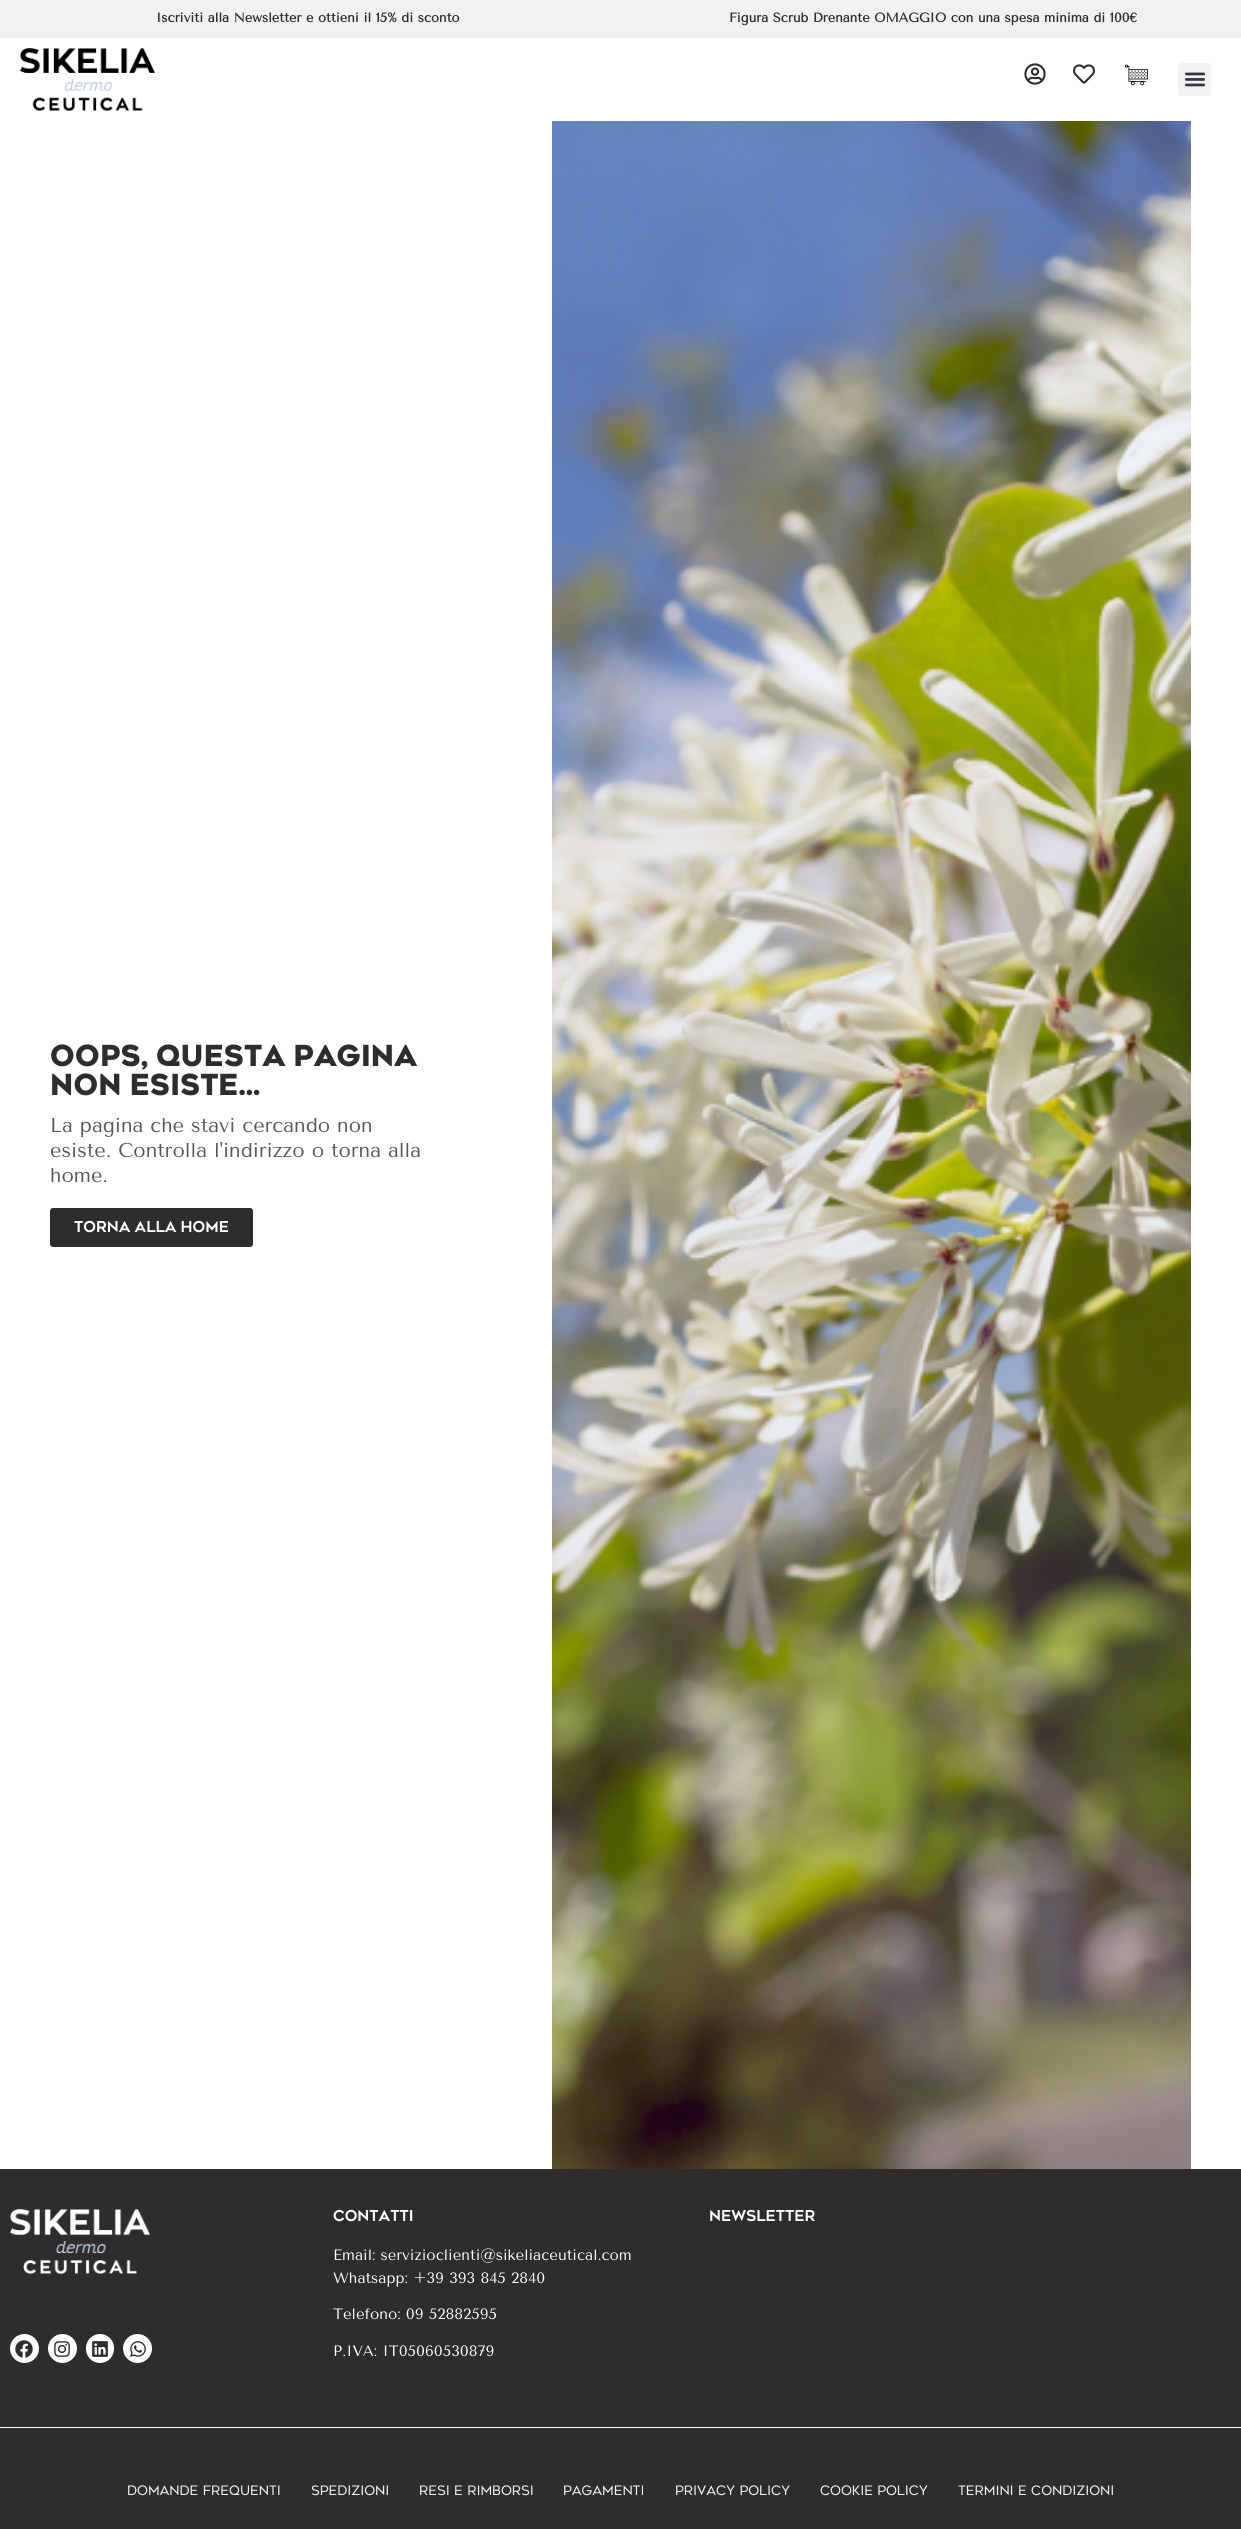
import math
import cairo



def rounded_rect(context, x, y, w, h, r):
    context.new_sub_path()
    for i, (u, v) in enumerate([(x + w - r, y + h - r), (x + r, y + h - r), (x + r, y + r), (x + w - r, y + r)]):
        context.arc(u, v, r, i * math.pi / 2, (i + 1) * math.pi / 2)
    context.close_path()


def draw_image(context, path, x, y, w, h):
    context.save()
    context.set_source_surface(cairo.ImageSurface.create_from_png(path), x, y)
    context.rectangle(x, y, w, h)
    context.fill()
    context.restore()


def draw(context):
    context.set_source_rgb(1, 1, 1)
    context.paint()
    context.set_source_rgb(241 / 255, 241 / 255, 241 / 255)
    context.rectangle(0, 0, 1241, 38)
    context.fill()
    draw_image(context, "images/1.png", 20, 48, 135, 63)
    draw_image(context, "images/2.png", 1024, 63, 22, 22)
    draw_image(context, "images/3.png", 1073, 64, 22, 20)
    draw_image(context, "images/4.png", 1125, 64, 23, 22)
    context.set_source_rgb(242 / 255, 242 / 255, 242 / 255)
    rounded_rect(context, 1178, 63, 33, 33, 3)
    context.fill()
    draw_image(context, "images/5.png", 1184, 72, 22, 15)
    context.set_source_rgb(46 / 255, 45 / 255, 44 / 255)
    rounded_rect(context, 50, 1208, 203, 39, 3)
    context.fill()
    draw_image(context, "images/6.png", 552, 121, 639, 2048)
    context.rectangle(0, 2169, 1241, 360)
    context.fill()
    draw_image(context, "images/7.png", 10, 2209, 140, 65)
    context.set_source_rgb(1, 1, 1)
    context.arc(24.5, 2348.5, 14.5, 0, 2 * math.pi)
    context.fill()
    draw_image(context, "images/8.png", 15, 2340, 18, 18)
    context.arc(62.5, 2348.5, 14.5, 0, 2 * math.pi)
    context.fill()
    draw_image(context, "images/9.png", 54, 2341, 16, 16)
    rounded_rect(context, 86, 2334, 28, 29, 14)
    context.fill()
    draw_image(context, "images/10.png", 92, 2341, 16, 16)
    context.arc(137.5, 2348.5, 14.5, 0, 2 * math.pi)
    context.fill()
    draw_image(context, "images/11.png", 130, 2341, 16, 16)
    context.rectangle(0, 2427, 1241, 1)
    context.fill()
    context.select_font_face("Tenor Sans", cairo.FontSlant.NORMAL, cairo.FontWeight.BOLD)
    context.set_font_size(13)
    context.set_source_rgb(46 / 255, 45 / 255, 44 / 255)
    context.move_to(156, 22)
    context.show_text("Iscriviti alla Newsletter e ottieni il 15% di sconto")
    context.move_to(729, 22)
    context.show_text("Figura Scrub Drenante OMAGGIO con una spesa minima di 100€")
    context.select_font_face("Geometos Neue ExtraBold")
    context.set_font_size(29)
    context.move_to(50, 1066)
    context.show_text("oops, questa pagina")
    context.move_to(50, 1095)
    context.show_text("non esiste...")
    context.select_font_face("Tenor Sans")
    context.set_font_size(20)
    context.set_source_rgb(88 / 255, 89 / 255, 86 / 255)
    context.move_to(50, 1132)
    context.show_text("La pagina che stavi cercando non")
    context.move_to(50, 1157)
    context.show_text("esiste. Controlla l'indirizzo o torna alla")
    context.move_to(50, 1182)
    context.show_text("home.")
    context.select_font_face("Geometos Neue", cairo.FontSlant.NORMAL, cairo.FontWeight.BOLD)
    context.set_font_size(15)
    context.set_source_rgb(1, 1, 1)
    context.move_to(74, 1232)
    context.show_text("torna alla home")
    context.move_to(333, 2221)
    context.show_text("Contatti")
    context.select_font_face("Tenor Sans")
    context.move_to(333, 2260)
    context.show_text("Email: servizioclienti@sikeliaceutical.com")
    context.move_to(333, 2283)
    context.show_text("Whatsapp: +39 393 845 2840")
    context.move_to(333, 2319)
    context.show_text("Telefono: 09 52882595")
    context.move_to(333, 2356)
    context.show_text("P.IVA: IT05060530879")
    context.select_font_face("Geometos Neue", cairo.FontSlant.NORMAL, cairo.FontWeight.BOLD)
    context.move_to(709, 2221)
    context.show_text("NEWSLETTER")
    context.select_font_face("Geometos Neue")
    context.set_font_size(13)
    context.set_source_rgb(241 / 255, 241 / 255, 241 / 255)
    context.move_to(127, 2495)
    context.show_text("Domande frequenti")
    context.move_to(311, 2495)
    context.show_text("Spedizioni")
    context.move_to(419, 2495)
    context.show_text("Resi e Rimborsi")
    context.move_to(563, 2495)
    context.show_text("Pagamenti")
    context.move_to(675, 2495)
    context.show_text("Privacy Policy")
    context.move_to(820, 2495)
    context.show_text("Cookie Policy")
    context.move_to(958, 2495)
    context.show_text("Termini e Condizioni")


surface = cairo.ImageSurface(cairo.Format.RGB24, 1241, 2529)
context = cairo.Context(surface)
options = cairo.FontOptions()
options.set_hint_metrics(cairo.HintMetrics.OFF)
options.set_hint_style(cairo.HintStyle.NONE)
context.set_font_options(options)
context.set_miter_limit(4)
draw(context)
surface.write_to_png("out.png")
